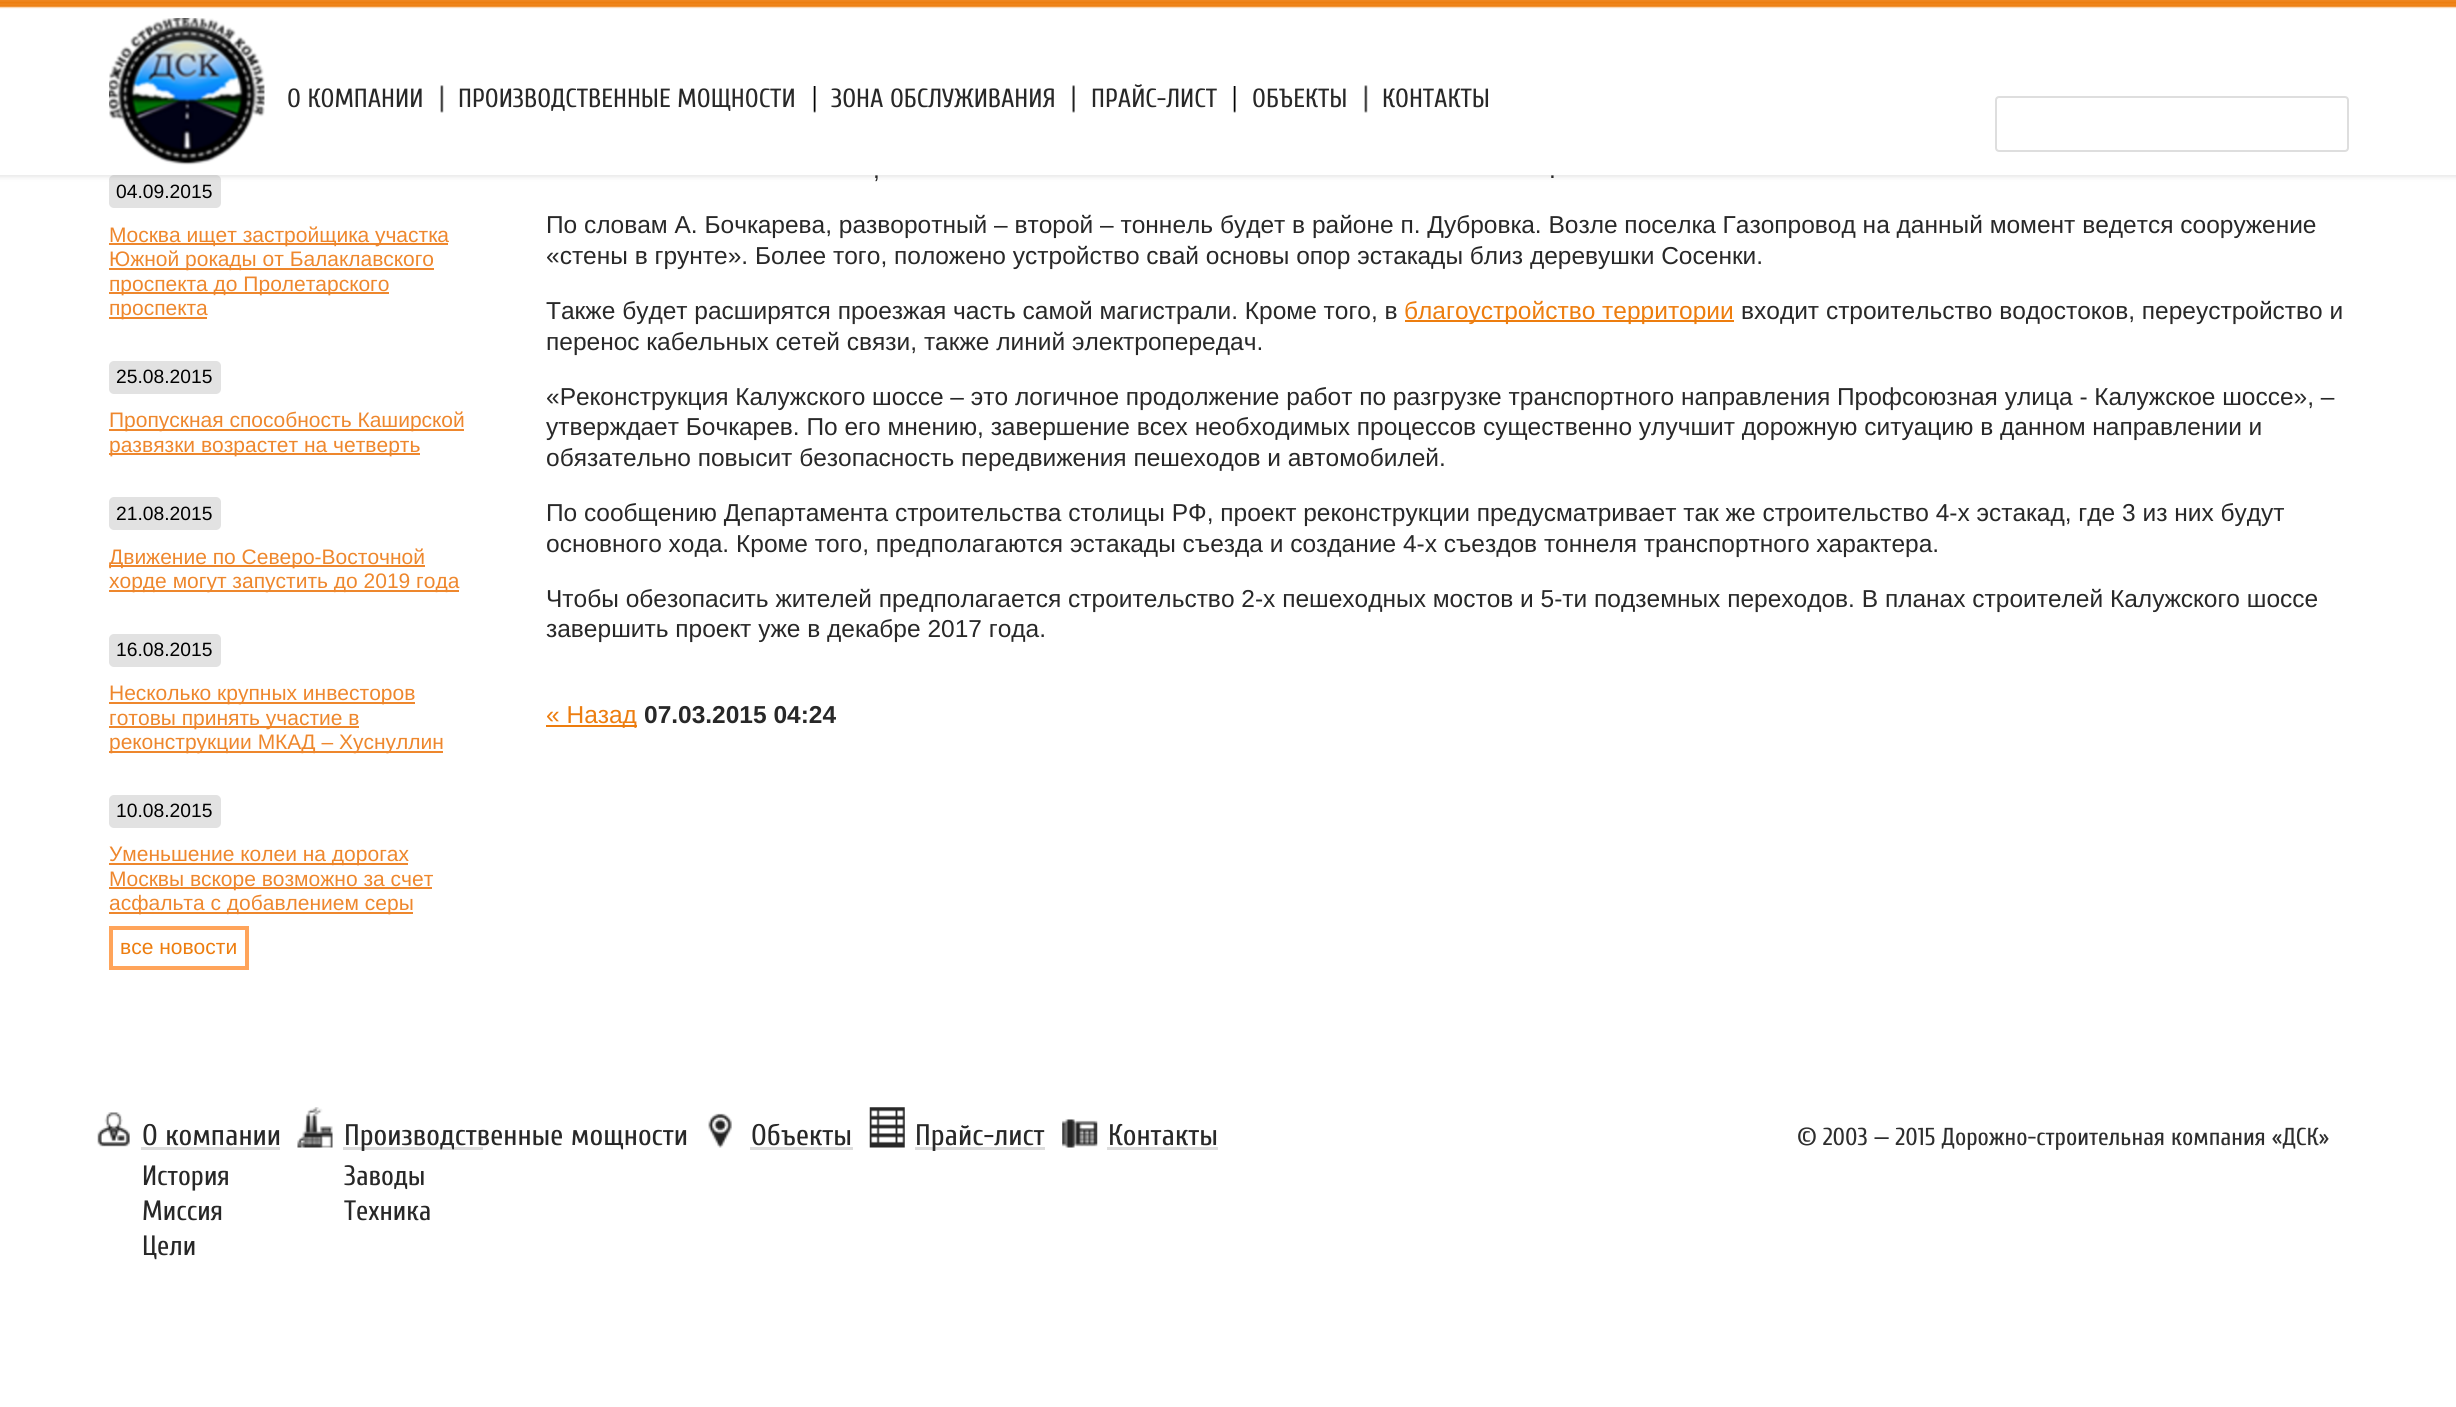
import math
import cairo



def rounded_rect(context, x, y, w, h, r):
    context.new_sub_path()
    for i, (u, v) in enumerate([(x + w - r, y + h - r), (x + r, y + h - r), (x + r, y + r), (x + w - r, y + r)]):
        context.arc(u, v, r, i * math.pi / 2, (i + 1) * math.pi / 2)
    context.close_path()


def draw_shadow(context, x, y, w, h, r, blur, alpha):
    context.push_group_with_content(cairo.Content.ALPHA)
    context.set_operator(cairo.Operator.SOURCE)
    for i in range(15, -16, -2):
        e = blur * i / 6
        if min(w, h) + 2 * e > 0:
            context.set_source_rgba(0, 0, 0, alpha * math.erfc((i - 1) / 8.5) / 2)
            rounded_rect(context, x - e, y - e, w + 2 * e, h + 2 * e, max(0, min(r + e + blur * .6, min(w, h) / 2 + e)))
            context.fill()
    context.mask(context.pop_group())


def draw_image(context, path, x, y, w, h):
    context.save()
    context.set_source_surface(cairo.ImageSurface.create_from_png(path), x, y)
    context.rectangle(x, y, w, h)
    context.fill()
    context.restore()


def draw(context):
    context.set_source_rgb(1, 1, 1)
    context.paint()
    context.set_source_rgb(226 / 255, 226 / 255, 226 / 255)
    rounded_rect(context, 109, 175, 112, 33, 5)
    context.fill()
    context.set_source_rgb(0, 0, 0)
    draw_shadow(context, -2, -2, 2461, 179, 0, 2.5, 0.1)
    context.set_source_rgb(1, 1, 1)
    context.rectangle(0, 0, 2456, 175)
    context.fill()
    draw_image(context, "images/1.png", 0, 0, 2456, 9)
    draw_image(context, "images/2.png", 109, 18, 156, 147)
    draw_image(context, "images/3.png", 440, 85, 4, 28)
    draw_image(context, "images/4.png", 813, 86, 3, 27)
    draw_image(context, "images/5.png", 1072, 85, 3, 28)
    draw_image(context, "images/4.png", 1233, 86, 3, 27)
    draw_image(context, "images/3.png", 1364, 85, 4, 28)
    rounded_rect(context, 1996, 97, 352, 54, 3)
    context.set_source_rgb(222 / 255, 222 / 255, 222 / 255)
    context.stroke()
    context.set_source_rgb(238 / 255, 135 / 255, 45 / 255)
    context.rectangle(109, 243, 339, 2)
    context.fill()
    context.rectangle(109, 268, 325, 2)
    context.fill()
    context.rectangle(109, 292, 280, 2)
    context.fill()
    context.rectangle(109, 317, 98, 2)
    context.fill()
    context.set_source_rgb(226 / 255, 226 / 255, 226 / 255)
    rounded_rect(context, 109, 361, 112, 33, 5)
    context.fill()
    context.set_source_rgb(238 / 255, 135 / 255, 45 / 255)
    context.rectangle(109, 429, 355, 2)
    context.fill()
    context.rectangle(109, 453, 311, 2)
    context.fill()
    context.set_source_rgb(226 / 255, 226 / 255, 226 / 255)
    rounded_rect(context, 109, 497, 112, 33, 5)
    context.fill()
    context.set_source_rgb(238 / 255, 135 / 255, 45 / 255)
    context.rectangle(109, 565, 316, 2)
    context.fill()
    context.rectangle(109, 590, 350, 2)
    context.fill()
    context.set_source_rgb(226 / 255, 226 / 255, 226 / 255)
    rounded_rect(context, 109, 634, 112, 33, 5)
    context.fill()
    context.set_source_rgb(238 / 255, 135 / 255, 45 / 255)
    context.rectangle(109, 702, 306, 2)
    context.fill()
    context.rectangle(109, 726, 250, 2)
    context.fill()
    context.rectangle(109, 751, 334, 2)
    context.fill()
    context.set_source_rgb(226 / 255, 226 / 255, 226 / 255)
    rounded_rect(context, 109, 795, 112, 33, 5)
    context.fill()
    context.set_source_rgb(238 / 255, 135 / 255, 45 / 255)
    context.rectangle(109, 863, 299, 2)
    context.fill()
    context.rectangle(109, 887, 323, 2)
    context.fill()
    context.rectangle(109, 912, 304, 2)
    context.fill()
    context.rectangle(111, 928, 136, 40)
    context.set_source_rgb(1, 164 / 255, 90 / 255)
    context.set_line_width(4)
    context.stroke()
    context.set_source_rgb(237 / 255, 125 / 255, 14 / 255)
    context.rectangle(1405, 320, 329, 2)
    context.fill()
    context.rectangle(546, 725, 91, 2)
    context.fill()
    draw_image(context, "images/6.png", 97, 1112, 33, 35)
    context.set_source_rgb(220 / 255, 220 / 255, 220 / 255)
    context.rectangle(141, 1147, 139, 3)
    context.fill()
    draw_image(context, "images/7.png", 297, 1107, 36, 41)
    context.rectangle(343, 1147, 140, 3)
    context.fill()
    draw_image(context, "images/8.png", 708, 1113, 24, 35)
    context.rectangle(750, 1147, 103, 3)
    context.fill()
    draw_image(context, "images/9.png", 869, 1107, 36, 41)
    context.rectangle(915, 1147, 130, 3)
    context.fill()
    draw_image(context, "images/10.png", 1062, 1119, 36, 29)
    context.rectangle(1107, 1147, 111, 3)
    context.fill()
    context.select_font_face("Cuprum")
    context.set_font_size(26.25)
    context.set_source_rgb(40 / 255, 40 / 255, 40 / 255)
    context.move_to(287, 107)
    context.show_text("О КОМПАНИИ")
    context.move_to(458, 107)
    context.show_text("ПРОИЗВОДСТВЕННЫЕ МОЩНОСТИ")
    context.move_to(831, 107)
    context.show_text("ЗОНА ОБСЛУЖИВАНИЯ")
    context.move_to(1091, 107)
    context.show_text("ПРАЙС-ЛИСТ")
    context.move_to(1252, 107)
    context.show_text("ОБЪЕКТЫ")
    context.move_to(1382, 107)
    context.show_text("КОНТАКТЫ")
    context.select_font_face("Liberation Sans")
    context.set_font_size(19.25)
    context.set_source_rgb(0, 0, 0)
    context.move_to(116, 198)
    context.show_text("04.09.2015")
    context.set_font_size(21)
    context.set_source_rgb(238 / 255, 135 / 255, 45 / 255)
    context.move_to(109, 242)
    context.show_text("Москва ищет застройщика участка")
    context.move_to(109, 266)
    context.show_text("Южной рокады от Балаклавского")
    context.move_to(109, 291)
    context.show_text("проспекта до Пролетарского")
    context.move_to(109, 315)
    context.show_text("проспекта")
    context.set_font_size(19.25)
    context.set_source_rgb(0, 0, 0)
    context.move_to(116, 383)
    context.show_text("25.08.2015")
    context.set_font_size(21)
    context.set_source_rgb(238 / 255, 135 / 255, 45 / 255)
    context.move_to(109, 427)
    context.show_text("Пропускная способность Каширской")
    context.move_to(109, 452)
    context.show_text("развязки возрастет на четверть")
    context.set_font_size(19.25)
    context.set_source_rgb(0, 0, 0)
    context.move_to(116, 520)
    context.show_text("21.08.2015")
    context.set_font_size(21)
    context.set_source_rgb(238 / 255, 135 / 255, 45 / 255)
    context.move_to(109, 564)
    context.show_text("Движение по Северо-Восточной")
    context.move_to(109, 588)
    context.show_text("хорде могут запустить до 2019 года")
    context.set_font_size(19.25)
    context.set_source_rgb(0, 0, 0)
    context.move_to(116, 656)
    context.show_text("16.08.2015")
    context.set_font_size(21)
    context.set_source_rgb(238 / 255, 135 / 255, 45 / 255)
    context.move_to(109, 700)
    context.show_text("Несколько крупных инвесторов")
    context.move_to(109, 725)
    context.show_text("готовы принять участие в")
    context.move_to(109, 749)
    context.show_text("реконструкции МКАД – Хуснуллин")
    context.set_font_size(19.25)
    context.set_source_rgb(0, 0, 0)
    context.move_to(116, 817)
    context.show_text("10.08.2015")
    context.set_font_size(21)
    context.set_source_rgb(238 / 255, 135 / 255, 45 / 255)
    context.move_to(109, 861)
    context.show_text("Уменьшение колеи на дорогах")
    context.move_to(109, 886)
    context.show_text("Москвы вскоре возможно за счет")
    context.move_to(109, 910)
    context.show_text("асфальта с добавлением серы")
    context.set_source_rgb(237 / 255, 125 / 255, 14 / 255)
    context.move_to(120, 954)
    context.show_text("все новости")
    context.set_font_size(24.5)
    context.set_source_rgb(40 / 255, 40 / 255, 40 / 255)
    context.move_to(873, 178)
    context.show_text(",")
    context.move_to(1549, 178)
    context.show_text(".")
    context.move_to(546, 233)
    context.show_text("По словам А. Бочкарева, разворотный – второй – тоннель будет в районе п. Дубровка. Возле поселка Газопровод на данный момент ведется сооружение")
    context.move_to(546, 264)
    context.show_text("«стены в грунте». Более того, положено устройство свай основы опор эстакады близ деревушки Сосенки.")
    context.move_to(546, 319)
    context.show_text("Также будет расширятся проезжая часть самой магистрали. Кроме того, в")
    context.set_source_rgb(237 / 255, 125 / 255, 14 / 255)
    context.move_to(1404, 319)
    context.show_text("благоустройство территории")
    context.set_source_rgb(40 / 255, 40 / 255, 40 / 255)
    context.move_to(1741, 319)
    context.show_text("входит строительство водостоков, переустройство и")
    context.move_to(546, 350)
    context.show_text("перенос кабельных сетей связи, также линий электропередач.")
    context.move_to(546, 405)
    context.show_text("«Реконструкция Калужского шоссе – это логичное продолжение работ по разгрузке транспортного направления Профсоюзная улица - Калужское шоссе», –")
    context.move_to(546, 435)
    context.show_text("утверждает Бочкарев. По его мнению, завершение всех необходимых процессов существенно улучшит дорожную ситуацию в данном направлении и")
    context.move_to(546, 466)
    context.show_text("обязательно повысит безопасность передвижения пешеходов и автомобилей.")
    context.move_to(546, 521)
    context.show_text("По сообщению Департамента строительства столицы РФ, проект реконструкции предусматривает так же строительство 4-х эстакад, где 3 из них будут")
    context.move_to(546, 552)
    context.show_text("основного хода. Кроме того, предполагаются эстакады съезда и создание 4-х съездов тоннеля транспортного характера.")
    context.move_to(546, 607)
    context.show_text("Чтобы обезопасить жителей предполагается строительство 2-х пешеходных мостов и 5-ти подземных переходов. В планах строителей Калужского шоссе")
    context.move_to(546, 637)
    context.show_text("завершить проект уже в декабре 2017 года.")
    context.set_source_rgb(237 / 255, 125 / 255, 14 / 255)
    context.move_to(546, 723)
    context.show_text("« Назад")
    context.select_font_face("Liberation Sans", cairo.FontSlant.NORMAL, cairo.FontWeight.BOLD)
    context.set_source_rgb(40 / 255, 40 / 255, 40 / 255)
    context.move_to(644, 723)
    context.show_text("07.03.2015 04:24")
    context.select_font_face("Cuprum")
    context.set_font_size(29.75)
    context.move_to(142, 1145)
    context.show_text("О компании")
    context.set_font_size(28)
    context.move_to(142, 1185)
    context.show_text("История")
    context.move_to(142, 1220)
    context.show_text("Миссия")
    context.move_to(142, 1255)
    context.show_text("Цели")
    context.set_font_size(29.75)
    context.move_to(344, 1145)
    context.show_text("Производственные мощности")
    context.set_font_size(28)
    context.move_to(344, 1185)
    context.show_text("Заводы")
    context.move_to(344, 1220)
    context.show_text("Техника")
    context.set_font_size(29.75)
    context.move_to(751, 1145)
    context.show_text("Объекты")
    context.move_to(915, 1145)
    context.show_text("Прайс-лист")
    context.move_to(1108, 1145)
    context.show_text("Контакты")
    context.set_font_size(24.5)
    context.set_source_rgb(46 / 255, 46 / 255, 46 / 255)
    context.move_to(1797, 1145)
    context.show_text("© 2003 — 2015 Дорожно-строительная компания «ДСК»")


surface = cairo.ImageSurface(cairo.Format.RGB24, 2456, 1407)
context = cairo.Context(surface)
options = cairo.FontOptions()
options.set_hint_metrics(cairo.HintMetrics.OFF)
options.set_hint_style(cairo.HintStyle.NONE)
context.set_font_options(options)
context.set_miter_limit(4)
draw(context)
surface.write_to_png("out.png")
